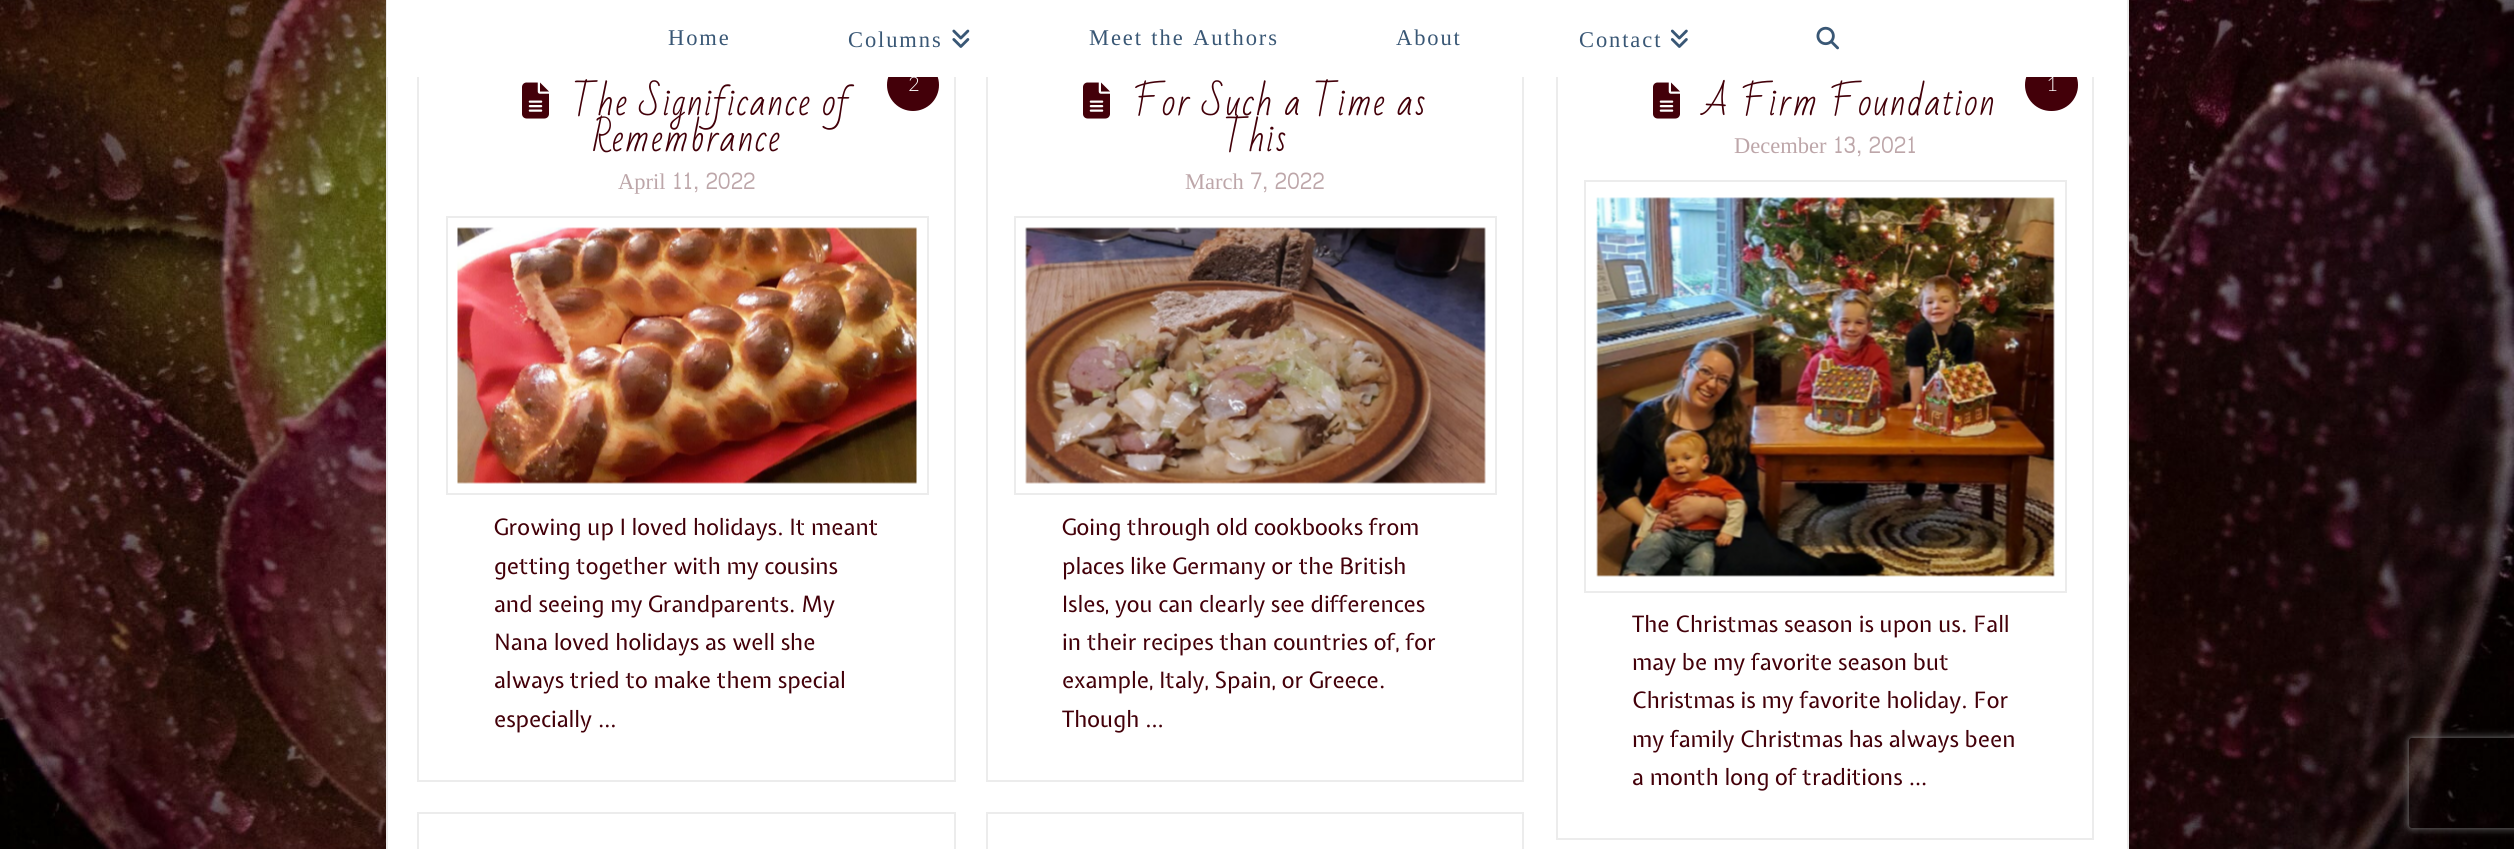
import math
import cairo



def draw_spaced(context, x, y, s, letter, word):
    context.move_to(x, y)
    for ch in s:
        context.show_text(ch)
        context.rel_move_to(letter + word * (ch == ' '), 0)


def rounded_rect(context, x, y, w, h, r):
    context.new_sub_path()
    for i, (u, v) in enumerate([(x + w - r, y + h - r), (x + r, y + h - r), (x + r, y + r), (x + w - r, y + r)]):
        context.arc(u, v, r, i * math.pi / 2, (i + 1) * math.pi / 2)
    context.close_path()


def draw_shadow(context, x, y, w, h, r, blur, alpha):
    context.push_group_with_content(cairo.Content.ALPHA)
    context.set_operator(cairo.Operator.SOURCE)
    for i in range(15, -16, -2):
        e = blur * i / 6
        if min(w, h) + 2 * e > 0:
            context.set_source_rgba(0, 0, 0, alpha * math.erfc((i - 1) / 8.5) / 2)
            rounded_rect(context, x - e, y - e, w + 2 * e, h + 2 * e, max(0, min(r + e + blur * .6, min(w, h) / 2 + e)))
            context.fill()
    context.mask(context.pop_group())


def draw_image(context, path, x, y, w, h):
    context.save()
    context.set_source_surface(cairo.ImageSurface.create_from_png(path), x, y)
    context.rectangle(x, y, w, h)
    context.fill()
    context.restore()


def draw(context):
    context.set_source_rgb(1, 1, 1)
    context.paint()
    draw_image(context, "images/1.png", 0, 0, 2514, 849)
    context.set_source_rgb(1, 1, 1)
    context.rectangle(388, 77, 1739, 772)
    context.fill()
    context.set_source_rgb(236 / 255, 236 / 255, 236 / 255)
    context.rectangle(2127, 0, 2, 849)
    context.fill()
    context.rectangle(386, 0, 2, 849)
    context.fill()
    context.rectangle(418, 43, 537, 738)
    context.stroke()
    context.set_source_rgb(67 / 255, 0, 9 / 255)
    context.arc(913, 85, 26, 0, 2 * math.pi)
    context.fill()
    context.rectangle(987, 43, 536, 738)
    context.set_source_rgb(236 / 255, 236 / 255, 236 / 255)
    context.stroke()
    context.rectangle(1557, 43, 536, 796)
    context.stroke()
    context.set_source_rgb(67 / 255, 0, 9 / 255)
    rounded_rect(context, 2025, 59, 53, 52, 26)
    context.fill()
    context.set_source_rgb(1, 1, 1)
    context.rectangle(387, 0, 1740, 77)
    context.fill()
    draw_image(context, "images/2.png", 952, 29, 18, 19)
    draw_image(context, "images/3.png", 1670, 29, 18, 19)
    draw_image(context, "images/4.png", 1816, 26, 23, 24)
    draw_image(context, "images/5.png", 522, 82, 27, 37)
    context.rectangle(447, 217, 481, 277)
    context.set_source_rgb(236 / 255, 236 / 255, 236 / 255)
    context.stroke()
    draw_image(context, "images/6.png", 457, 227, 460, 257)
    draw_image(context, "images/5.png", 1083, 82, 27, 37)
    context.rectangle(1015, 217, 481, 277)
    context.stroke()
    draw_image(context, "images/7.png", 1025, 227, 461, 257)
    draw_image(context, "images/5.png", 1653, 82, 27, 37)
    context.rectangle(1585, 181, 481, 411)
    context.stroke()
    draw_image(context, "images/8.png", 1596, 197, 459, 380)
    context.rectangle(418, 813, 537, 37)
    context.stroke()
    context.rectangle(987, 813, 536, 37)
    context.stroke()
    context.save()
    context.set_fill_rule(cairo.FillRule.EVEN_ODD)
    context.new_path()
    context.move_to(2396, 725)
    context.line_to(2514, 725)
    context.line_to(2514, 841)
    context.line_to(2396, 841)
    context.close_path()
    context.move_to(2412, 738)
    context.line_to(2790, 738)
    context.curve_to(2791.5, 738, 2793, 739.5, 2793, 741)
    context.line_to(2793, 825)
    context.curve_to(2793, 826.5, 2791.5, 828, 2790, 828)
    context.line_to(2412, 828)
    context.curve_to(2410.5, 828, 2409, 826.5, 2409, 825)
    context.line_to(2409, 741)
    context.curve_to(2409, 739.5, 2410.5, 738, 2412, 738)
    context.close_path()
    context.clip()
    context.set_source_rgb(128 / 255, 128 / 255, 128 / 255)
    draw_shadow(context, 2409, 738, 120, 90, 3, 4, 1)
    context.restore()
    context.select_font_face("Liberation Serif")
    context.set_font_size(22.5)
    context.set_source_rgb(57 / 255, 87 / 255, 117 / 255)
    draw_spaced(context, 668, 45, "Home", 1.9, 0)
    draw_spaced(context, 848, 47, "Columns", 1.9, 0)
    draw_spaced(context, 1089, 45, "Meet the Authors", 1.9, 1)
    draw_spaced(context, 1396, 45, "About", 1.9, 0)
    draw_spaced(context, 1579, 47, "Contact", 1.9, 0)
    context.select_font_face("Bad Script")
    context.set_font_size(36)
    context.set_source_rgb(67 / 255, 0, 9 / 255)
    draw_spaced(context, 572, 115, "The Significance of", 1.4, 0)
    draw_spaced(context, 592, 151, "Remembrance", 1.4, 0)
    context.select_font_face("Liberation Serif")
    context.set_font_size(22.5)
    context.set_source_rgb(189 / 255, 166 / 255, 169 / 255)
    context.move_to(618, 189)
    context.show_text("April")
    context.select_font_face("Siemreap")
    context.move_to(672, 189)
    context.show_text("11, 2022")
    context.select_font_face("Expletus Sans")
    context.set_source_rgb(67 / 255, 0, 9 / 255)
    context.move_to(494, 535)
    context.show_text("Growing up I loved holidays. It meant")
    context.move_to(494, 574)
    context.show_text("getting together with my cousins")
    context.move_to(494, 612)
    context.show_text("and seeing my Grandparents. My")
    context.move_to(494, 650)
    context.show_text("Nana loved holidays as well she")
    context.move_to(494, 688)
    context.show_text("always tried to make them special")
    context.move_to(494, 727)
    context.show_text("especially …")
    context.select_font_face("Lato Light")
    context.set_font_size(20)
    context.set_source_rgb(1, 1, 1)
    context.move_to(908, 91)
    context.show_text("2")
    context.select_font_face("Bad Script")
    context.set_font_size(36)
    context.set_source_rgb(67 / 255, 0, 9 / 255)
    draw_spaced(context, 1133, 115, "For Such a Time as", 1.4, 0)
    draw_spaced(context, 1223, 151, "This", 1.4, 0)
    context.select_font_face("Liberation Serif")
    context.set_font_size(22.5)
    context.set_source_rgb(189 / 255, 166 / 255, 169 / 255)
    context.move_to(1185, 189)
    context.show_text("March")
    context.select_font_face("Siemreap")
    context.move_to(1250, 189)
    context.show_text("7, 2022")
    context.select_font_face("Expletus Sans")
    context.set_source_rgb(67 / 255, 0, 9 / 255)
    context.move_to(1062, 535)
    context.show_text("Going through old cookbooks from")
    context.move_to(1062, 574)
    context.show_text("places like Germany or the British")
    context.move_to(1062, 612)
    context.show_text("Isles, you can clearly see differences")
    context.move_to(1062, 650)
    context.show_text("in their recipes than countries of, for")
    context.move_to(1062, 688)
    context.show_text("example, Italy, Spain, or Greece.")
    context.move_to(1062, 727)
    context.show_text("Though …")
    context.select_font_face("Bad Script")
    context.set_font_size(36)
    draw_spaced(context, 1703, 115, "A Firm Foundation", 1.4, 0)
    context.select_font_face("Liberation Serif")
    context.set_font_size(22.5)
    context.set_source_rgb(189 / 255, 166 / 255, 169 / 255)
    context.move_to(1734, 153)
    context.show_text("December")
    context.select_font_face("Siemreap")
    context.move_to(1833, 153)
    context.show_text("13, 2021")
    context.select_font_face("Expletus Sans")
    context.set_source_rgb(67 / 255, 0, 9 / 255)
    context.move_to(1632, 632)
    context.show_text("The Christmas season is upon us. Fall")
    context.move_to(1632, 670)
    context.show_text("may be my favorite season but")
    context.move_to(1632, 708)
    context.show_text("Christmas is my favorite holiday. For")
    context.move_to(1632, 747)
    context.show_text("my family Christmas has always been")
    context.move_to(1632, 785)
    context.show_text("a month long of traditions …")
    context.select_font_face("Lato Light")
    context.set_font_size(20)
    context.set_source_rgb(1, 1, 1)
    context.move_to(2046, 91)
    context.show_text("1")


surface = cairo.ImageSurface(cairo.Format.RGB24, 2514, 849)
context = cairo.Context(surface)
options = cairo.FontOptions()
options.set_hint_metrics(cairo.HintMetrics.OFF)
options.set_hint_style(cairo.HintStyle.NONE)
context.set_font_options(options)
context.set_miter_limit(4)
draw(context)
surface.write_to_png("out.png")
